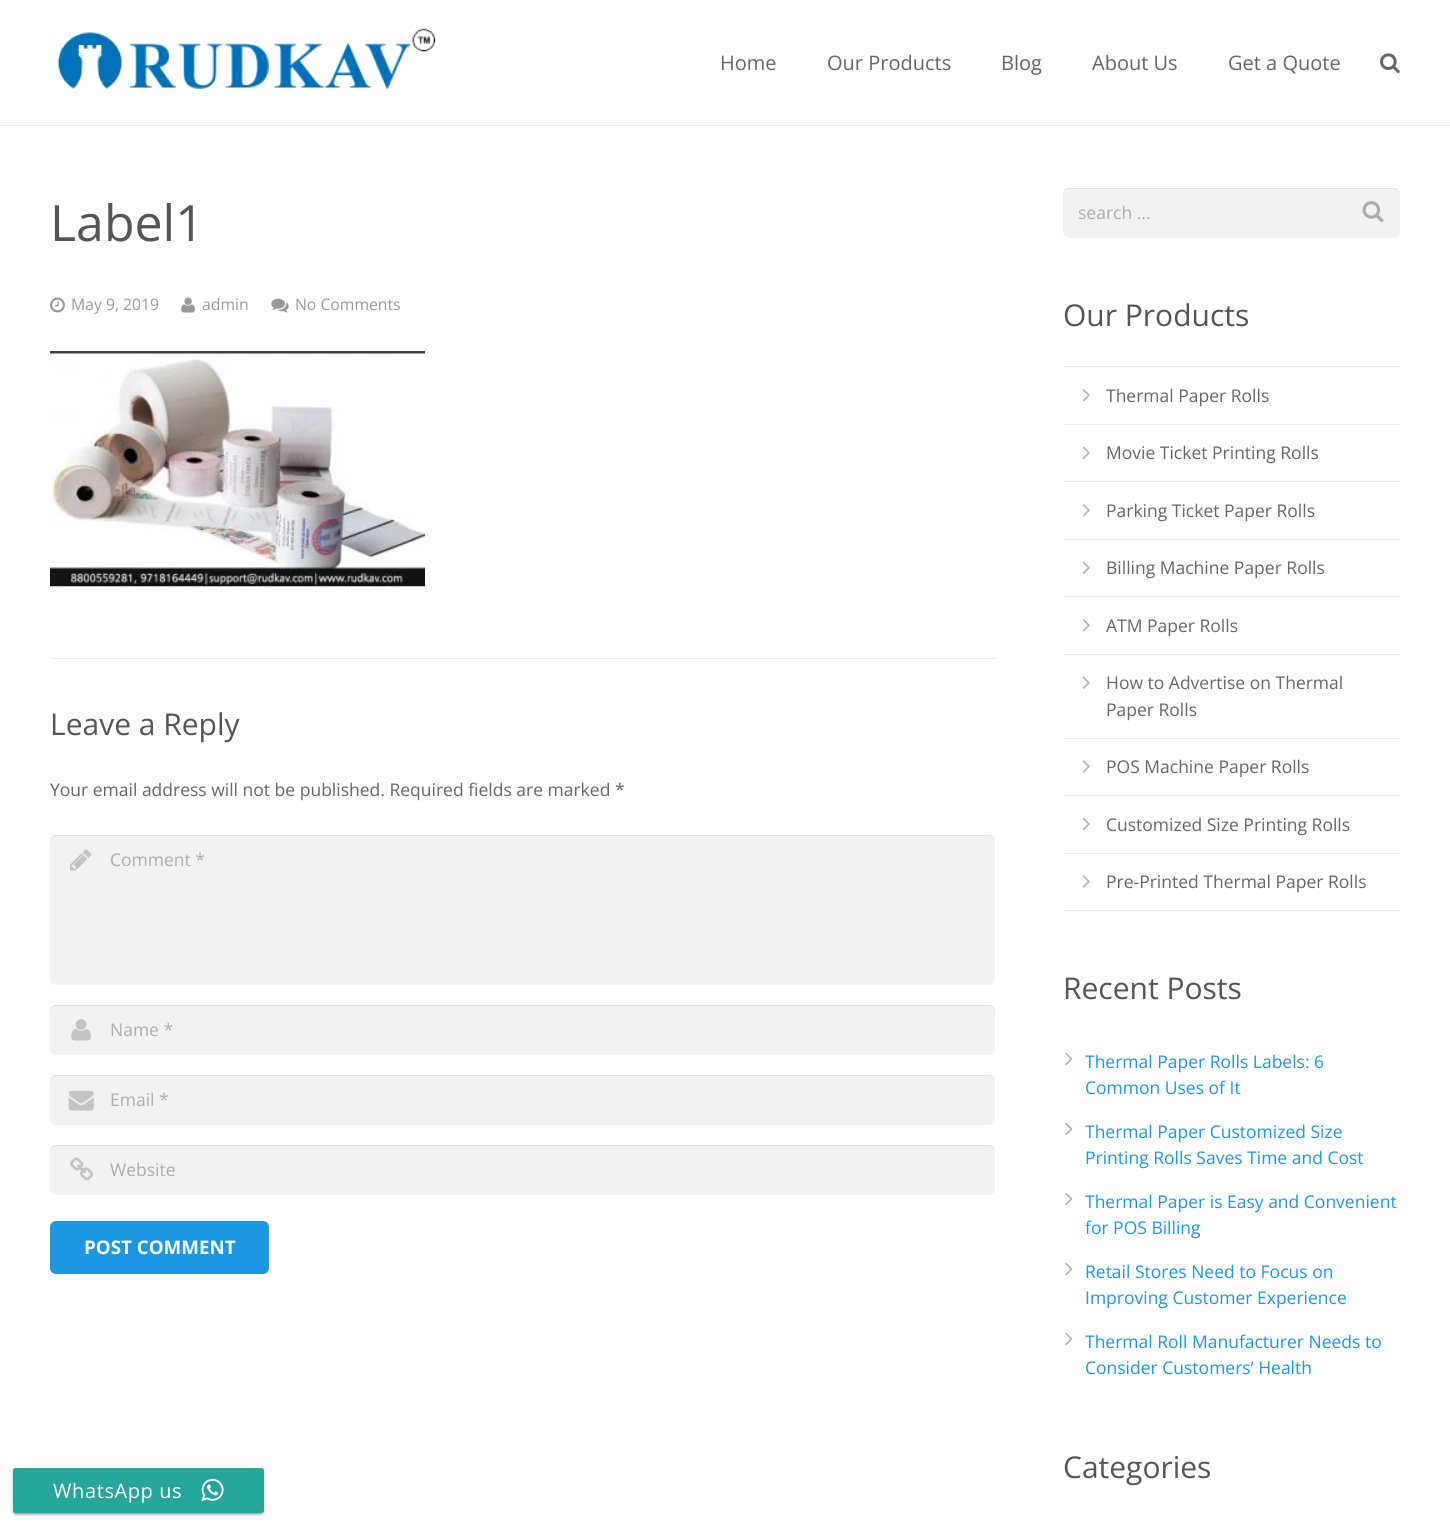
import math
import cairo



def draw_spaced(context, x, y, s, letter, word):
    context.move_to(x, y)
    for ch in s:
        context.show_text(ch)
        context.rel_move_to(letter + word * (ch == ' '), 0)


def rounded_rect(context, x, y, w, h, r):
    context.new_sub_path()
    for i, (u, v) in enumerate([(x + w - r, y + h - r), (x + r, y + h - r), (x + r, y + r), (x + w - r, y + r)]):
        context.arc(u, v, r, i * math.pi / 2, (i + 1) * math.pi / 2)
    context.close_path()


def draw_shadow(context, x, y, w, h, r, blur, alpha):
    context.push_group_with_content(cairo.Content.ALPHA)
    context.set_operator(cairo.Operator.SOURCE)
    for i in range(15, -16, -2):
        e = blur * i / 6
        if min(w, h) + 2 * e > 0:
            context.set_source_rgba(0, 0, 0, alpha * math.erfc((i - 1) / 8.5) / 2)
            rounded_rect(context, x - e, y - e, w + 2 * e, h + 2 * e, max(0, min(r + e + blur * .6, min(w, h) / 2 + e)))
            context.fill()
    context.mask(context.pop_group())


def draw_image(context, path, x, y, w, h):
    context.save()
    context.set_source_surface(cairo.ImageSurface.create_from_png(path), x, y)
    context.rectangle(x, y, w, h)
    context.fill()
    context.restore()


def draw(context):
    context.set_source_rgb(1, 1, 1)
    context.paint()
    context.set_source_rgb(235 / 255, 235 / 255, 235 / 255)
    context.rectangle(0, 125, 1450, 1)
    context.fill()
    draw_image(context, "images/1.png", 57, 28, 380, 61)
    draw_image(context, "images/2.png", 1380, 53, 20, 20)
    draw_image(context, "images/3.png", 50, 297, 15, 16)
    draw_image(context, "images/4.png", 181, 297, 14, 16)
    draw_image(context, "images/5.png", 271, 298, 18, 15)
    draw_image(context, "images/6.png", 50, 351, 375, 236)
    context.set_source_rgb(232 / 255, 232 / 255, 232 / 255)
    context.rectangle(50, 658, 945, 1)
    context.fill()
    context.set_source_rgb(242 / 255, 242 / 255, 242 / 255)
    rounded_rect(context, 50, 835, 945, 150, 6)
    context.fill()
    draw_image(context, "images/7.png", 70, 849, 22, 22)
    context.set_source_rgba(0, 0, 0, 0.08)
    context.new_path()
    context.move_to(56, 836)
    context.line_to(989, 836)
    context.curve_to(992, 836, 995, 839, 995, 842)
    context.line_to(995, 841)
    context.curve_to(995, 838, 992, 835, 989, 835)
    context.line_to(56, 835)
    context.curve_to(53, 835, 50, 838, 50, 841)
    context.line_to(50, 842)
    context.curve_to(50, 839, 53, 836, 56, 836)
    context.close_path()
    context.fill()
    context.set_source_rgb(242 / 255, 242 / 255, 242 / 255)
    rounded_rect(context, 50, 1005, 945, 50, 6)
    context.fill()
    draw_image(context, "images/8.png", 71, 1019, 20, 22)
    context.set_source_rgba(0, 0, 0, 0.08)
    context.new_path()
    context.move_to(56, 1006)
    context.line_to(989, 1006)
    context.curve_to(992, 1006, 995, 1009, 995, 1012)
    context.line_to(995, 1011)
    context.curve_to(995, 1008, 992, 1005, 989, 1005)
    context.line_to(56, 1005)
    context.curve_to(53, 1005, 50, 1008, 50, 1011)
    context.line_to(50, 1012)
    context.curve_to(50, 1009, 53, 1006, 56, 1006)
    context.close_path()
    context.fill()
    context.set_source_rgb(242 / 255, 242 / 255, 242 / 255)
    rounded_rect(context, 50, 1075, 945, 50, 6)
    context.fill()
    draw_image(context, "images/9.png", 68, 1090, 26, 21)
    context.set_source_rgba(0, 0, 0, 0.08)
    context.new_path()
    context.move_to(56, 1076)
    context.line_to(989, 1076)
    context.curve_to(992, 1076, 995, 1079, 995, 1082)
    context.line_to(995, 1081)
    context.curve_to(995, 1078, 992, 1075, 989, 1075)
    context.line_to(56, 1075)
    context.curve_to(53, 1075, 50, 1078, 50, 1081)
    context.line_to(50, 1082)
    context.curve_to(50, 1079, 53, 1076, 56, 1076)
    context.close_path()
    context.fill()
    context.set_source_rgb(242 / 255, 242 / 255, 242 / 255)
    rounded_rect(context, 50, 1145, 945, 50, 6)
    context.fill()
    draw_image(context, "images/10.png", 70, 1157, 23, 24)
    context.set_source_rgba(0, 0, 0, 0.08)
    context.new_path()
    context.move_to(56, 1146)
    context.line_to(989, 1146)
    context.curve_to(992, 1146, 995, 1149, 995, 1152)
    context.line_to(995, 1151)
    context.curve_to(995, 1148, 992, 1145, 989, 1145)
    context.line_to(56, 1145)
    context.curve_to(53, 1145, 50, 1148, 50, 1151)
    context.line_to(50, 1152)
    context.curve_to(50, 1149, 53, 1146, 56, 1146)
    context.close_path()
    context.fill()
    context.set_source_rgb(27 / 255, 152 / 255, 224 / 255)
    rounded_rect(context, 50, 1221, 219, 53, 6)
    context.fill()
    context.set_source_rgb(242 / 255, 242 / 255, 242 / 255)
    rounded_rect(context, 1063, 188, 337, 50, 6)
    context.fill()
    context.set_source_rgba(0, 0, 0, 0.08)
    context.new_path()
    context.move_to(1069, 189)
    context.line_to(1394, 189)
    context.curve_to(1397, 189, 1400, 192, 1400, 195)
    context.line_to(1400, 194)
    context.curve_to(1400, 191, 1397, 188, 1394, 188)
    context.line_to(1069, 188)
    context.curve_to(1067, 188, 1065, 189, 1064, 191)
    context.curve_to(1065, 190, 1067, 189, 1069, 189)
    context.close_path()
    context.fill()
    draw_image(context, "images/11.png", 1362, 201, 22, 21)
    context.set_source_rgb(232 / 255, 232 / 255, 232 / 255)
    context.rectangle(1063, 910, 337, 1)
    context.fill()
    context.rectangle(1063, 366, 337, 1)
    context.fill()
    draw_image(context, "images/12.png", 1082, 389, 8, 13)
    context.rectangle(1063, 424, 337, 1)
    context.fill()
    draw_image(context, "images/13.png", 1082, 446, 8, 13)
    context.rectangle(1063, 481, 337, 1)
    context.fill()
    draw_image(context, "images/12.png", 1082, 504, 8, 13)
    context.rectangle(1063, 539, 337, 1)
    context.fill()
    draw_image(context, "images/13.png", 1082, 561, 8, 13)
    context.rectangle(1063, 596, 337, 1)
    context.fill()
    draw_image(context, "images/12.png", 1082, 619, 8, 13)
    context.rectangle(1063, 654, 337, 1)
    context.fill()
    draw_image(context, "images/13.png", 1082, 676, 8, 13)
    context.rectangle(1063, 738, 337, 1)
    context.fill()
    draw_image(context, "images/14.png", 1082, 760, 8, 13)
    context.rectangle(1063, 795, 337, 1)
    context.fill()
    draw_image(context, "images/15.png", 1082, 817, 8, 14)
    context.rectangle(1063, 853, 337, 1)
    context.fill()
    draw_image(context, "images/14.png", 1082, 875, 8, 13)
    draw_image(context, "images/16.png", 1065, 1052, 8, 14)
    draw_image(context, "images/16.png", 1065, 1122, 8, 14)
    draw_image(context, "images/16.png", 1065, 1192, 8, 14)
    draw_image(context, "images/16.png", 1065, 1262, 8, 14)
    draw_image(context, "images/16.png", 1065, 1332, 8, 14)
    context.set_source_rgb(0, 0, 0)
    draw_shadow(context, 15, 1474, 246, 40, 0, 0.5, 0.2)
    draw_shadow(context, 13, 1469, 251, 45, 2.5, 3, 0.12)
    draw_shadow(context, 13, 1470, 251, 45, 2.5, 1, 0.14)
    context.set_source_rgb(38 / 255, 166 / 255, 154 / 255)
    rounded_rect(context, 13, 1468, 251, 45, 2.5)
    context.fill()
    draw_image(context, "images/17.png", 201, 1478, 23, 24)
    context.select_font_face("Open Sans")
    context.set_font_size(20)
    context.set_source_rgb(102 / 255, 102 / 255, 102 / 255)
    context.move_to(720, 70)
    context.show_text("Home")
    context.move_to(827, 70)
    context.show_text("Our Products")
    context.move_to(1001, 70)
    context.show_text("Blog")
    context.move_to(1092, 70)
    context.show_text("About Us")
    context.move_to(1228, 70)
    context.show_text("Get a Quote")
    context.set_font_size(50)
    context.set_source_rgb(85 / 255, 85 / 255, 85 / 255)
    context.move_to(50, 241)
    context.show_text("Label1")
    context.set_font_size(15.75)
    context.set_source_rgb(153 / 255, 153 / 255, 153 / 255)
    context.move_to(71, 310)
    context.show_text("May 9, 2019")
    context.move_to(202, 310)
    context.show_text("admin")
    context.move_to(295, 310)
    context.show_text("No Comments")
    context.set_font_size(30)
    context.set_source_rgb(85 / 255, 85 / 255, 85 / 255)
    context.move_to(50, 735)
    context.show_text("Leave a Reply")
    context.set_font_size(17.5)
    context.set_source_rgb(102 / 255, 102 / 255, 102 / 255)
    context.move_to(50, 796)
    context.show_text("Your email address will not be published. Required fields are marked *")
    context.set_source_rgb(172 / 255, 172 / 255, 172 / 255)
    context.move_to(110, 866)
    context.show_text("Comment *")
    context.move_to(110, 1036)
    context.show_text("Name *")
    context.move_to(110, 1106)
    context.show_text("Email *")
    context.move_to(110, 1176)
    context.show_text("Website")
    context.select_font_face("Open Sans", cairo.FontSlant.NORMAL, cairo.FontWeight.BOLD)
    context.set_font_size(18.75)
    context.set_source_rgb(1, 1, 1)
    context.move_to(84, 1254)
    context.show_text("POST COMMENT")
    context.select_font_face("Open Sans")
    context.set_font_size(17.5)
    context.set_source_rgb(172 / 255, 172 / 255, 172 / 255)
    context.move_to(1078, 219)
    context.show_text("search ...")
    context.set_font_size(30)
    context.set_source_rgb(85 / 255, 85 / 255, 85 / 255)
    context.move_to(1063, 326)
    context.show_text("Our Products")
    context.set_font_size(17.5)
    context.set_source_rgb(102 / 255, 102 / 255, 102 / 255)
    context.move_to(1106, 402)
    context.show_text("Thermal Paper Rolls")
    context.move_to(1106, 459)
    context.show_text("Movie Ticket Printing Rolls")
    context.move_to(1106, 517)
    context.show_text("Parking Ticket Paper Rolls")
    context.move_to(1106, 574)
    context.show_text("Billing Machine Paper Rolls")
    context.move_to(1106, 632)
    context.show_text("ATM Paper Rolls")
    context.move_to(1106, 689)
    context.show_text("How to Advertise on Thermal")
    context.move_to(1106, 716)
    context.show_text("Paper Rolls")
    context.move_to(1106, 773)
    context.show_text("POS Machine Paper Rolls")
    context.move_to(1106, 831)
    context.show_text("Customized Size Printing Rolls")
    context.move_to(1106, 888)
    context.show_text("Pre-Printed Thermal Paper Rolls")
    context.set_font_size(30)
    context.set_source_rgb(85 / 255, 85 / 255, 85 / 255)
    context.move_to(1063, 999)
    context.show_text("Recent Posts")
    context.set_font_size(17.5)
    context.set_source_rgb(27 / 255, 152 / 255, 224 / 255)
    context.move_to(1085, 1068)
    context.show_text("Thermal Paper Rolls Labels: 6")
    context.move_to(1085, 1094)
    context.show_text("Common Uses of It")
    context.move_to(1085, 1138)
    context.show_text("Thermal Paper Customized Size")
    context.move_to(1085, 1164)
    context.show_text("Printing Rolls Saves Time and Cost")
    context.move_to(1085, 1208)
    context.show_text("Thermal Paper is Easy and Convenient")
    context.move_to(1085, 1234)
    context.show_text("for POS Billing")
    context.move_to(1085, 1278)
    context.show_text("Retail Stores Need to Focus on")
    context.move_to(1085, 1304)
    context.show_text("Improving Customer Experience")
    context.move_to(1085, 1348)
    context.show_text("Thermal Roll Manufacturer Needs to")
    context.move_to(1085, 1374)
    context.show_text("Consider Customers’ Health")
    context.set_font_size(30)
    context.set_source_rgb(85 / 255, 85 / 255, 85 / 255)
    context.move_to(1063, 1478)
    context.show_text("Categories")
    context.set_font_size(20)
    context.set_source_rgb(1, 1, 1)
    draw_spaced(context, 53, 1498, "WhatsApp us", 0.6, 0)


surface = cairo.ImageSurface(cairo.Format.RGB24, 1450, 1525)
context = cairo.Context(surface)
options = cairo.FontOptions()
options.set_hint_metrics(cairo.HintMetrics.OFF)
options.set_hint_style(cairo.HintStyle.NONE)
context.set_font_options(options)
context.set_miter_limit(4)
draw(context)
surface.write_to_png("out.png")
